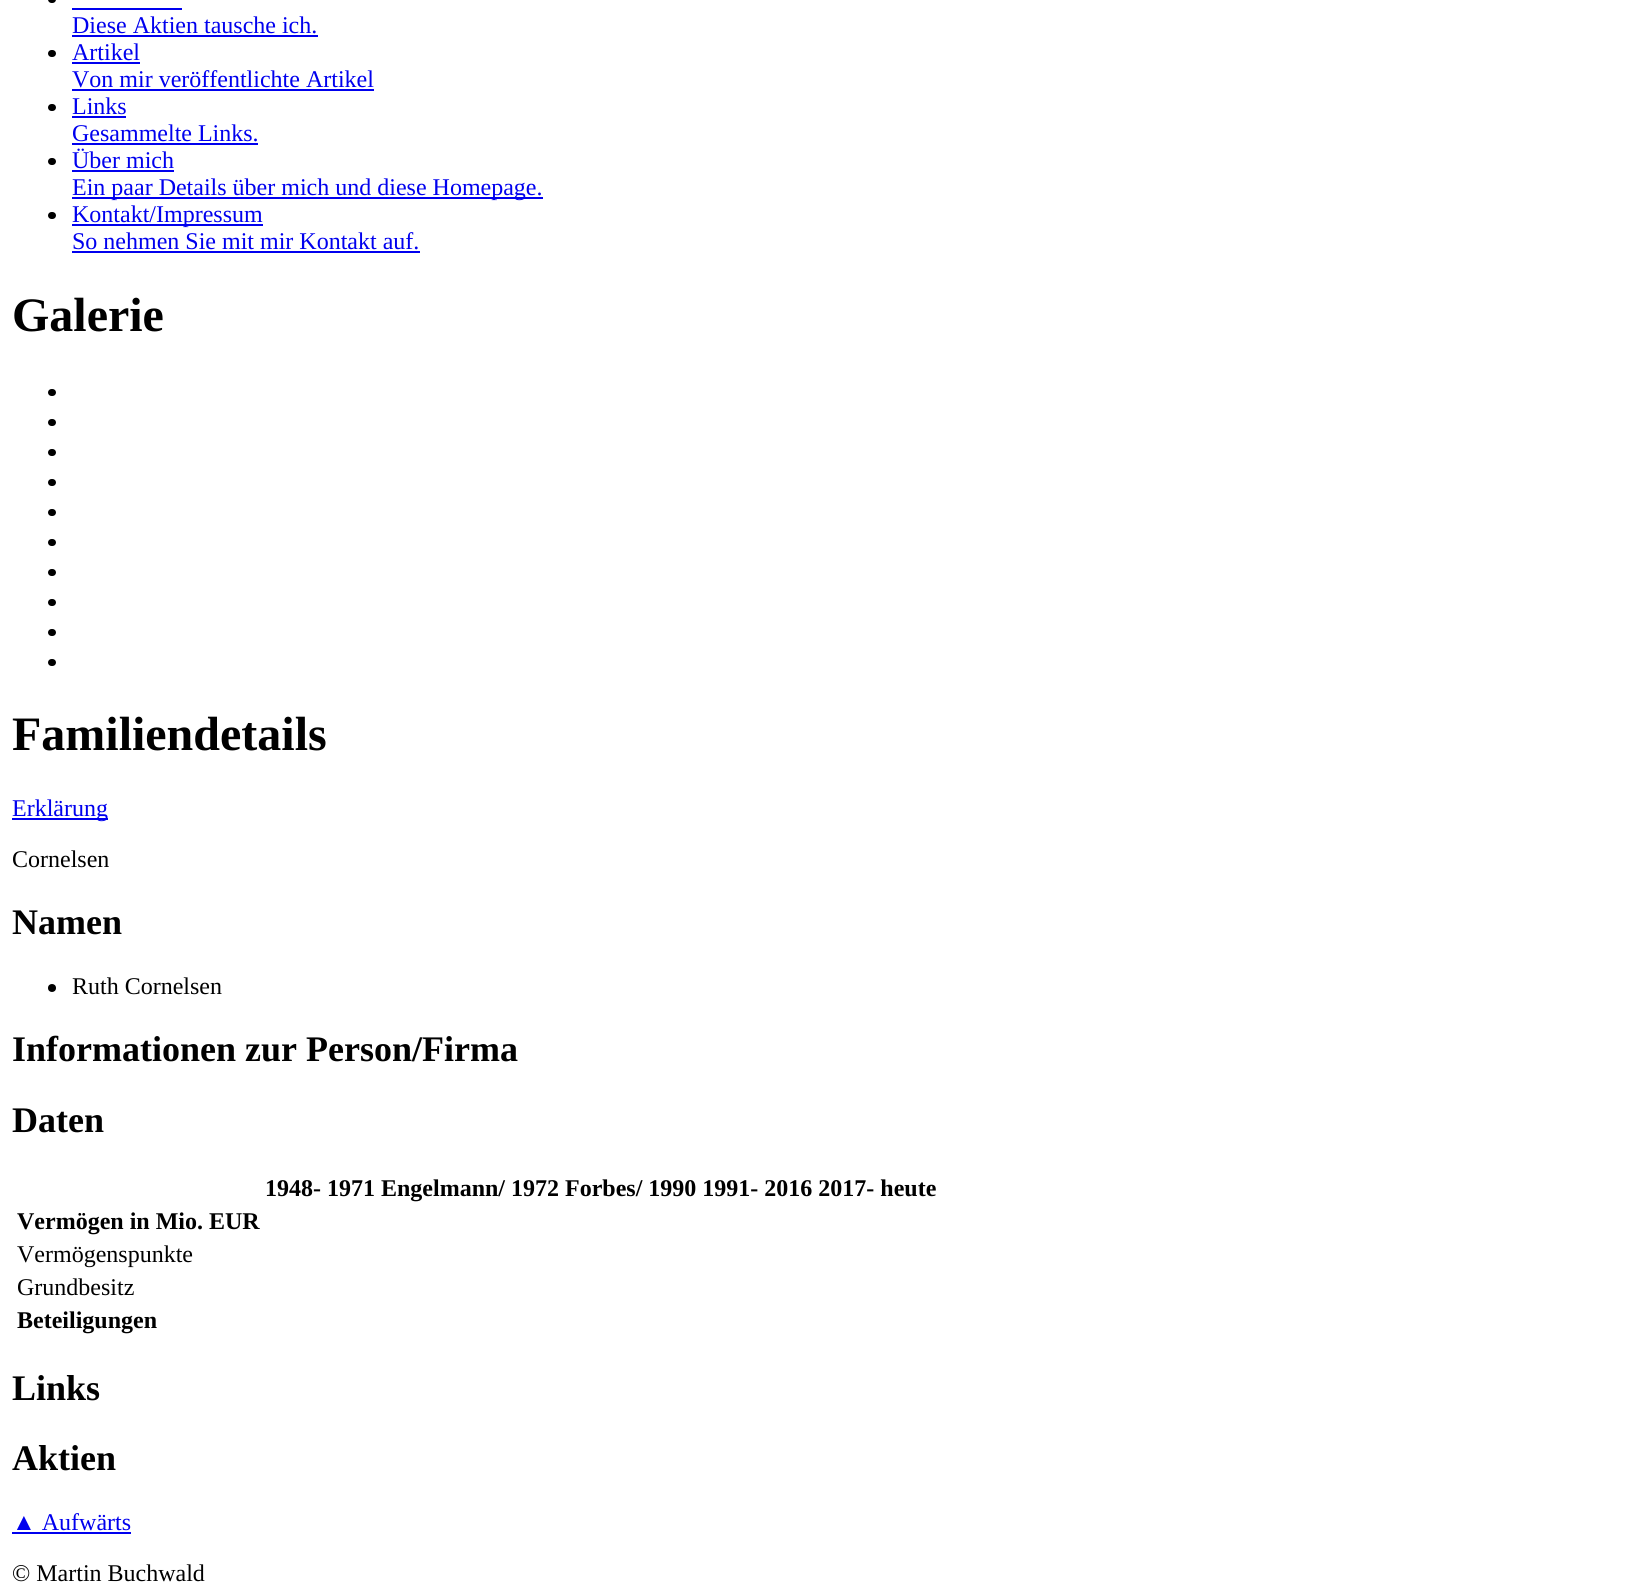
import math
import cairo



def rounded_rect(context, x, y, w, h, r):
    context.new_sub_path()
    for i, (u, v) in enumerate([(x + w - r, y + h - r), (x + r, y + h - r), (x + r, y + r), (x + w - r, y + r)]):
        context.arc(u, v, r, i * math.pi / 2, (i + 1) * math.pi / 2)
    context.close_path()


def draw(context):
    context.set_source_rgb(1, 1, 1)
    context.paint()
    context.set_source_rgb(0, 0, 0)
    rounded_rect(context, 48, -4, 8, 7, 3.5)
    context.fill()
    context.set_source_rgb(0, 0, 238 / 255)
    context.rectangle(72, 8, 110, 2)
    context.fill()
    context.rectangle(72, 35, 246, 2)
    context.fill()
    context.set_source_rgb(0, 0, 0)
    rounded_rect(context, 48, 50, 8, 7, 3.5)
    context.fill()
    context.set_source_rgb(0, 0, 238 / 255)
    context.rectangle(72, 62, 68, 2)
    context.fill()
    context.rectangle(72, 89, 302, 2)
    context.fill()
    context.set_source_rgb(0, 0, 0)
    rounded_rect(context, 48, 104, 8, 7, 3.5)
    context.fill()
    context.set_source_rgb(0, 0, 238 / 255)
    context.rectangle(72, 116, 54, 2)
    context.fill()
    context.rectangle(72, 143, 186, 2)
    context.fill()
    context.set_source_rgb(0, 0, 0)
    rounded_rect(context, 48, 158, 8, 7, 3.5)
    context.fill()
    context.set_source_rgb(0, 0, 238 / 255)
    context.rectangle(72, 170, 102, 2)
    context.fill()
    context.rectangle(72, 197, 471, 2)
    context.fill()
    context.set_source_rgb(0, 0, 0)
    rounded_rect(context, 48, 212, 8, 7, 3.5)
    context.fill()
    context.set_source_rgb(0, 0, 238 / 255)
    context.rectangle(72, 224, 191, 2)
    context.fill()
    context.rectangle(72, 251, 348, 2)
    context.fill()
    context.set_source_rgb(0, 0, 0)
    rounded_rect(context, 48, 389, 8, 7, 3.5)
    context.fill()
    rounded_rect(context, 48, 419, 8, 7, 3.5)
    context.fill()
    rounded_rect(context, 48, 449, 8, 7, 3.5)
    context.fill()
    rounded_rect(context, 48, 479, 8, 7, 3.5)
    context.fill()
    rounded_rect(context, 48, 509, 8, 7, 3.5)
    context.fill()
    rounded_rect(context, 48, 539, 8, 7, 3.5)
    context.fill()
    rounded_rect(context, 48, 569, 8, 7, 3.5)
    context.fill()
    rounded_rect(context, 48, 599, 8, 7, 3.5)
    context.fill()
    rounded_rect(context, 48, 629, 8, 7, 3.5)
    context.fill()
    rounded_rect(context, 48, 659, 8, 7, 3.5)
    context.fill()
    context.set_source_rgb(0, 0, 238 / 255)
    context.rectangle(12, 818, 96, 2)
    context.fill()
    context.set_source_rgb(0, 0, 0)
    context.arc(52, 988, 4, 0, 2 * math.pi)
    context.fill()
    context.set_source_rgb(0, 0, 238 / 255)
    context.rectangle(12, 1532, 119, 2)
    context.fill()
    context.select_font_face("Liberation Serif")
    context.set_font_size(24)
    context.move_to(72, 33)
    context.show_text("Diese Aktien tausche ich.")
    context.move_to(72, 60)
    context.show_text("Artikel")
    context.move_to(72, 87)
    context.show_text("Von mir veröffentlichte Artikel")
    context.move_to(72, 114)
    context.show_text("Links")
    context.move_to(72, 141)
    context.show_text("Gesammelte Links.")
    context.move_to(72, 168)
    context.show_text("Über mich")
    context.move_to(72, 195)
    context.show_text("Ein paar Details über mich und diese Homepage.")
    context.move_to(72, 222)
    context.show_text("Kontakt/Impressum")
    context.move_to(72, 249)
    context.show_text("So nehmen Sie mit mir Kontakt auf.")
    context.select_font_face("Liberation Serif", cairo.FontSlant.NORMAL, cairo.FontWeight.BOLD)
    context.set_font_size(48)
    context.set_source_rgb(0, 0, 0)
    context.move_to(12, 331)
    context.show_text("Galerie")
    context.move_to(12, 750)
    context.show_text("Familiendetails")
    context.select_font_face("Liberation Serif")
    context.set_font_size(24)
    context.set_source_rgb(0, 0, 238 / 255)
    context.move_to(12, 816)
    context.show_text("Erklärung")
    context.set_source_rgb(0, 0, 0)
    context.move_to(12, 867)
    context.show_text("Cornelsen")
    context.select_font_face("Liberation Serif", cairo.FontSlant.NORMAL, cairo.FontWeight.BOLD)
    context.set_font_size(36)
    context.move_to(12, 934)
    context.show_text("Namen")
    context.select_font_face("Liberation Serif")
    context.set_font_size(24)
    context.move_to(72, 994)
    context.show_text("Ruth Cornelsen")
    context.select_font_face("Liberation Serif", cairo.FontSlant.NORMAL, cairo.FontWeight.BOLD)
    context.set_font_size(36)
    context.move_to(12, 1061)
    context.show_text("Informationen zur Person/Firma")
    context.move_to(12, 1132)
    context.show_text("Daten")
    context.set_font_size(24)
    context.move_to(265, 1196)
    context.show_text("1948- 1971 Engelmann/ 1972 Forbes/ 1990 1991- 2016 2017- heute")
    context.move_to(17, 1229)
    context.show_text("Vermögen in Mio. EUR")
    context.select_font_face("Liberation Serif")
    context.move_to(17, 1262)
    context.show_text("Vermögenspunkte")
    context.move_to(17, 1295)
    context.show_text("Grundbesitz")
    context.select_font_face("Liberation Serif", cairo.FontSlant.NORMAL, cairo.FontWeight.BOLD)
    context.move_to(17, 1328)
    context.show_text("Beteiligungen")
    context.set_font_size(36)
    context.move_to(12, 1400)
    context.show_text("Links")
    context.move_to(12, 1470)
    context.show_text("Aktien")
    context.select_font_face("Liberation Serif")
    context.set_font_size(24)
    context.set_source_rgb(0, 0, 238 / 255)
    context.move_to(12, 1530)
    context.show_text("▲ Aufwärts")
    context.set_source_rgb(0, 0, 0)
    context.move_to(12, 1581)
    context.show_text("© Martin Buchwald")


surface = cairo.ImageSurface(cairo.Format.RGB24, 1635, 1595)
context = cairo.Context(surface)
options = cairo.FontOptions()
options.set_hint_metrics(cairo.HintMetrics.OFF)
options.set_hint_style(cairo.HintStyle.NONE)
context.set_font_options(options)
context.set_miter_limit(4)
draw(context)
surface.write_to_png("out.png")
